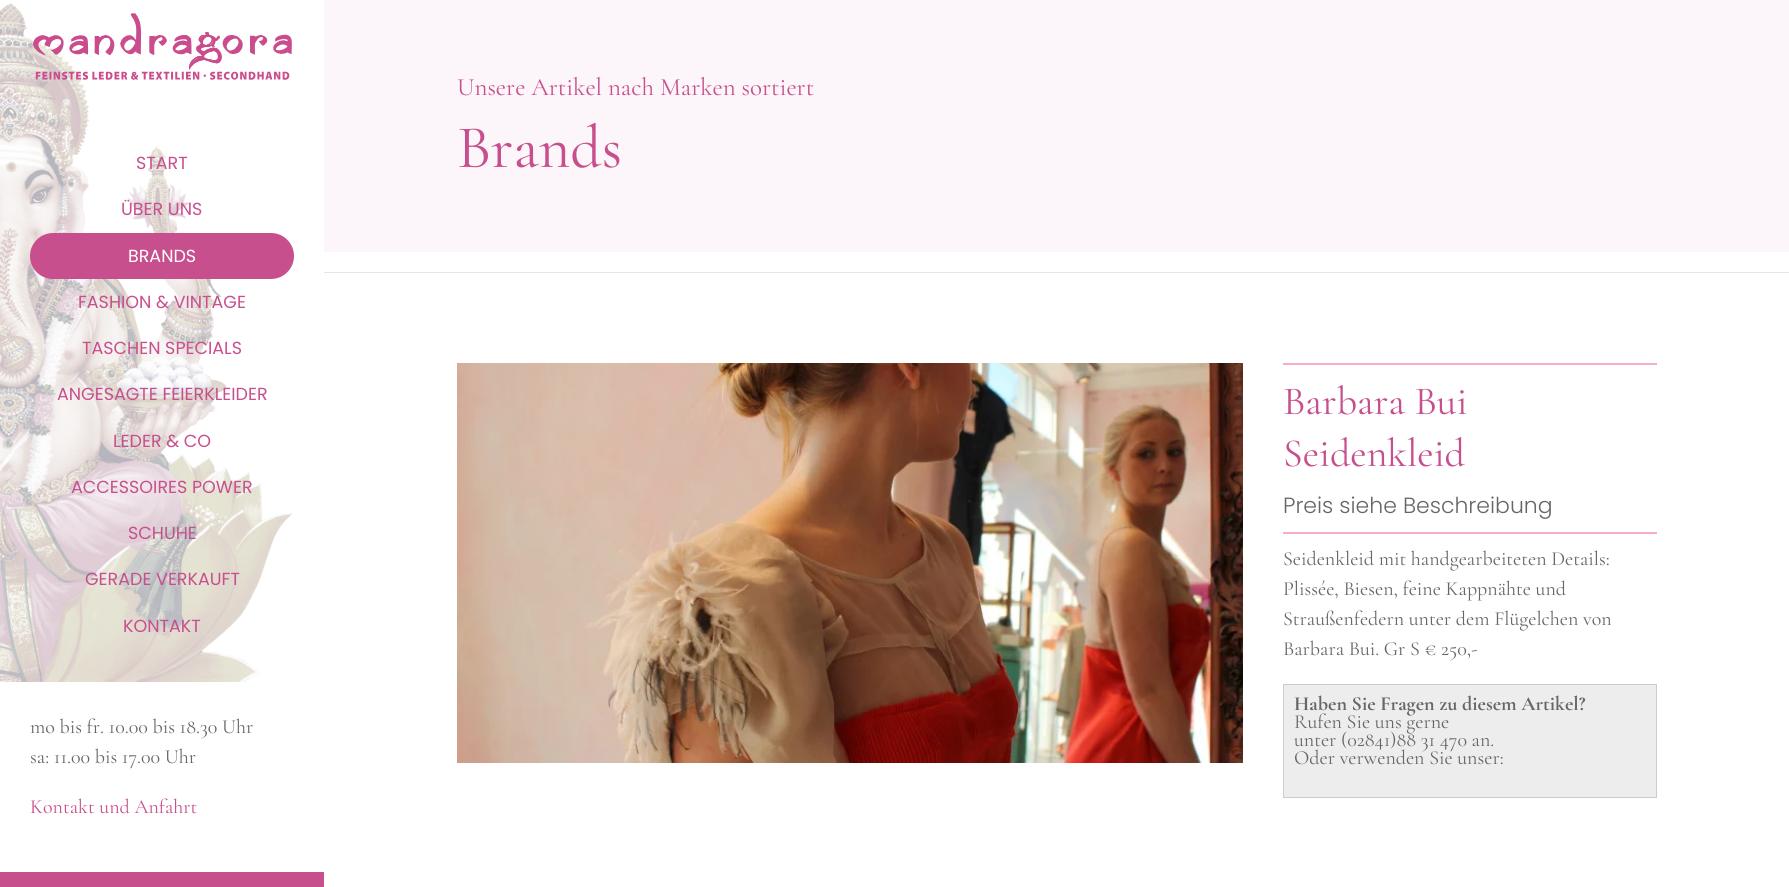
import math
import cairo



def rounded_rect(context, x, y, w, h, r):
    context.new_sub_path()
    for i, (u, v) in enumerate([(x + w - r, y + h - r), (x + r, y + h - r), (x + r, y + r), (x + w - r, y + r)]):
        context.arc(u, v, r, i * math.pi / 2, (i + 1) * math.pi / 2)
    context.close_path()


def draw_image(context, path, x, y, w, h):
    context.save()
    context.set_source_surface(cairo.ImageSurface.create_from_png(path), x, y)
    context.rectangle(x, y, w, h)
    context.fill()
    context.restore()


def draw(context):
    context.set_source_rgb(1, 1, 1)
    context.paint()
    draw_image(context, "images/2.png", 0, 2, 293, 680)
    draw_image(context, "images/1.png", 33, 13, 259, 67)
    context.set_source_rgb(200 / 255, 79 / 255, 141 / 255)
    rounded_rect(context, 30, 233, 264, 46, 23)
    context.fill()
    context.set_source_rgb(252 / 255, 245 / 255, 249 / 255)
    context.rectangle(324, 0, 1465, 252)
    context.fill()
    context.set_source_rgb(229 / 255, 229 / 255, 229 / 255)
    context.rectangle(324, 272, 1465, 1)
    context.fill()
    draw_image(context, "images/3.png", 457, 363, 786, 400)
    context.set_source_rgb(248 / 255, 172 / 255, 198 / 255)
    context.rectangle(1283, 363, 374, 2)
    context.fill()
    context.rectangle(1283, 532, 374, 2)
    context.fill()
    context.set_source_rgb(237 / 255, 237 / 255, 237 / 255)
    context.rectangle(1283.5, 684.5, 373, 113)
    context.fill_preserve()
    context.set_source_rgb(204 / 255, 204 / 255, 204 / 255)
    context.set_line_width(1)
    context.stroke()
    context.set_source_rgb(200 / 255, 79 / 255, 141 / 255)
    context.rectangle(0, 872, 324, 15)
    context.fill()
    context.select_font_face("Poppins")
    context.set_font_size(17.5)
    context.move_to(136, 169)
    context.show_text("START")
    context.move_to(121, 215)
    context.show_text("ÜBER UNS")
    context.set_source_rgb(1, 1, 1)
    context.move_to(128, 262)
    context.show_text("BRANDS")
    context.set_source_rgb(200 / 255, 79 / 255, 141 / 255)
    context.move_to(78, 308)
    context.show_text("FASHION & VINTAGE")
    context.move_to(82, 354)
    context.show_text("TASCHEN SPECIALS")
    context.move_to(57, 400)
    context.show_text("ANGESAGTE FEIERKLEIDER")
    context.move_to(113, 447)
    context.show_text("LEDER & CO")
    context.move_to(71, 493)
    context.show_text("ACCESSOIRES POWER")
    context.move_to(128, 539)
    context.show_text("SCHUHE")
    context.move_to(85, 585)
    context.show_text("GERADE VERKAUFT")
    context.move_to(123, 632)
    context.show_text("KONTAKT")
    context.select_font_face("Cormorant Garamond")
    context.set_font_size(25)
    context.move_to(457, 95)
    context.show_text("Unsere Artikel nach Marken sortiert")
    context.set_font_size(61)
    context.move_to(457, 167)
    context.show_text("Brands")
    context.set_font_size(40)
    context.move_to(1283, 414)
    context.show_text("Barbara Bui")
    context.move_to(1283, 466)
    context.show_text("Seidenkleid")
    context.select_font_face("Poppins Light")
    context.set_font_size(22)
    context.set_source_rgb(102 / 255, 102 / 255, 102 / 255)
    context.move_to(1283, 513)
    context.show_text("Preis siehe Beschreibung")
    context.select_font_face("Cormorant Garamond")
    context.set_font_size(20)
    context.move_to(1283, 565)
    context.show_text("Seidenkleid mit handgearbeiteten Details:")
    context.move_to(1283, 595)
    context.show_text("Plissée, Biesen, feine Kappnähte und")
    context.move_to(1283, 625)
    context.show_text("Straußenfedern unter dem Flügelchen von")
    context.move_to(1283, 655)
    context.show_text("Barbara Bui. Gr S € 250,-")
    context.select_font_face("Cormorant Garamond", cairo.FontSlant.NORMAL, cairo.FontWeight.BOLD)
    context.move_to(1294, 710)
    context.show_text("Haben Sie Fragen zu diesem Artikel?")
    context.select_font_face("Cormorant Garamond")
    context.move_to(1294, 728)
    context.show_text("Rufen Sie uns gerne")
    context.move_to(1294, 746)
    context.show_text("unter (02841)88 31 470 an.")
    context.move_to(1294, 764)
    context.show_text("Oder verwenden Sie unser:")
    context.move_to(30, 733)
    context.show_text("mo bis fr. 10.00 bis 18.30 Uhr")
    context.move_to(30, 763)
    context.show_text("sa: 11.00 bis 17.00 Uhr")
    context.set_source_rgb(200 / 255, 79 / 255, 141 / 255)
    context.move_to(30, 813)
    context.show_text("Kontakt und Anfahrt")


surface = cairo.ImageSurface(cairo.Format.RGB24, 1789, 887)
context = cairo.Context(surface)
options = cairo.FontOptions()
options.set_hint_metrics(cairo.HintMetrics.OFF)
options.set_hint_style(cairo.HintStyle.NONE)
context.set_font_options(options)
context.set_miter_limit(4)
draw(context)
surface.write_to_png("out.png")
